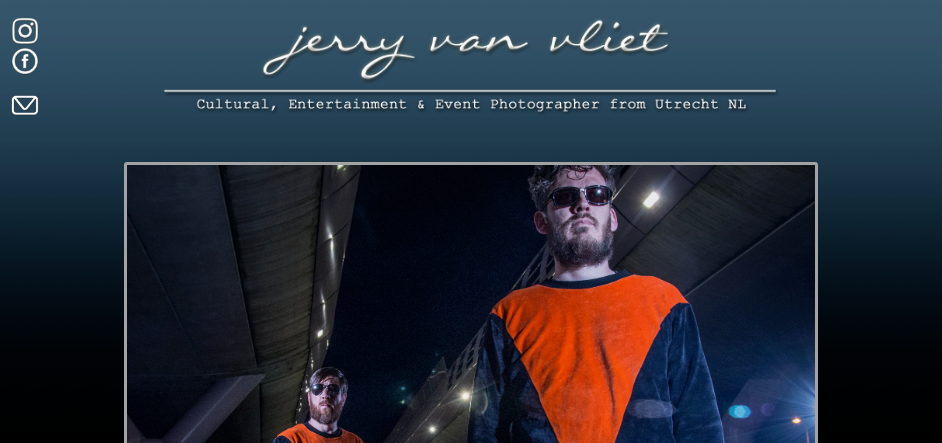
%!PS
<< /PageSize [942 443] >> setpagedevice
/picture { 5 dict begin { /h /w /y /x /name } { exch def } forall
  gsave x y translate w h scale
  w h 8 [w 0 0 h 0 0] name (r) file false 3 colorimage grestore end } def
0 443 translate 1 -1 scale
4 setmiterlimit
1 setgray
0 0 942 443 rectfill
(img1.rgb) 0 0 942 443 picture
(img2.rgb) 12 17 27 28 picture
(img3.rgb) 12 48 27 27 picture
(img4.rgb) 11 95 28 21 picture
(img5.rgb) 163 18 616 97 picture
(img6.rgb) 124 162 694 281 picture
showpage
